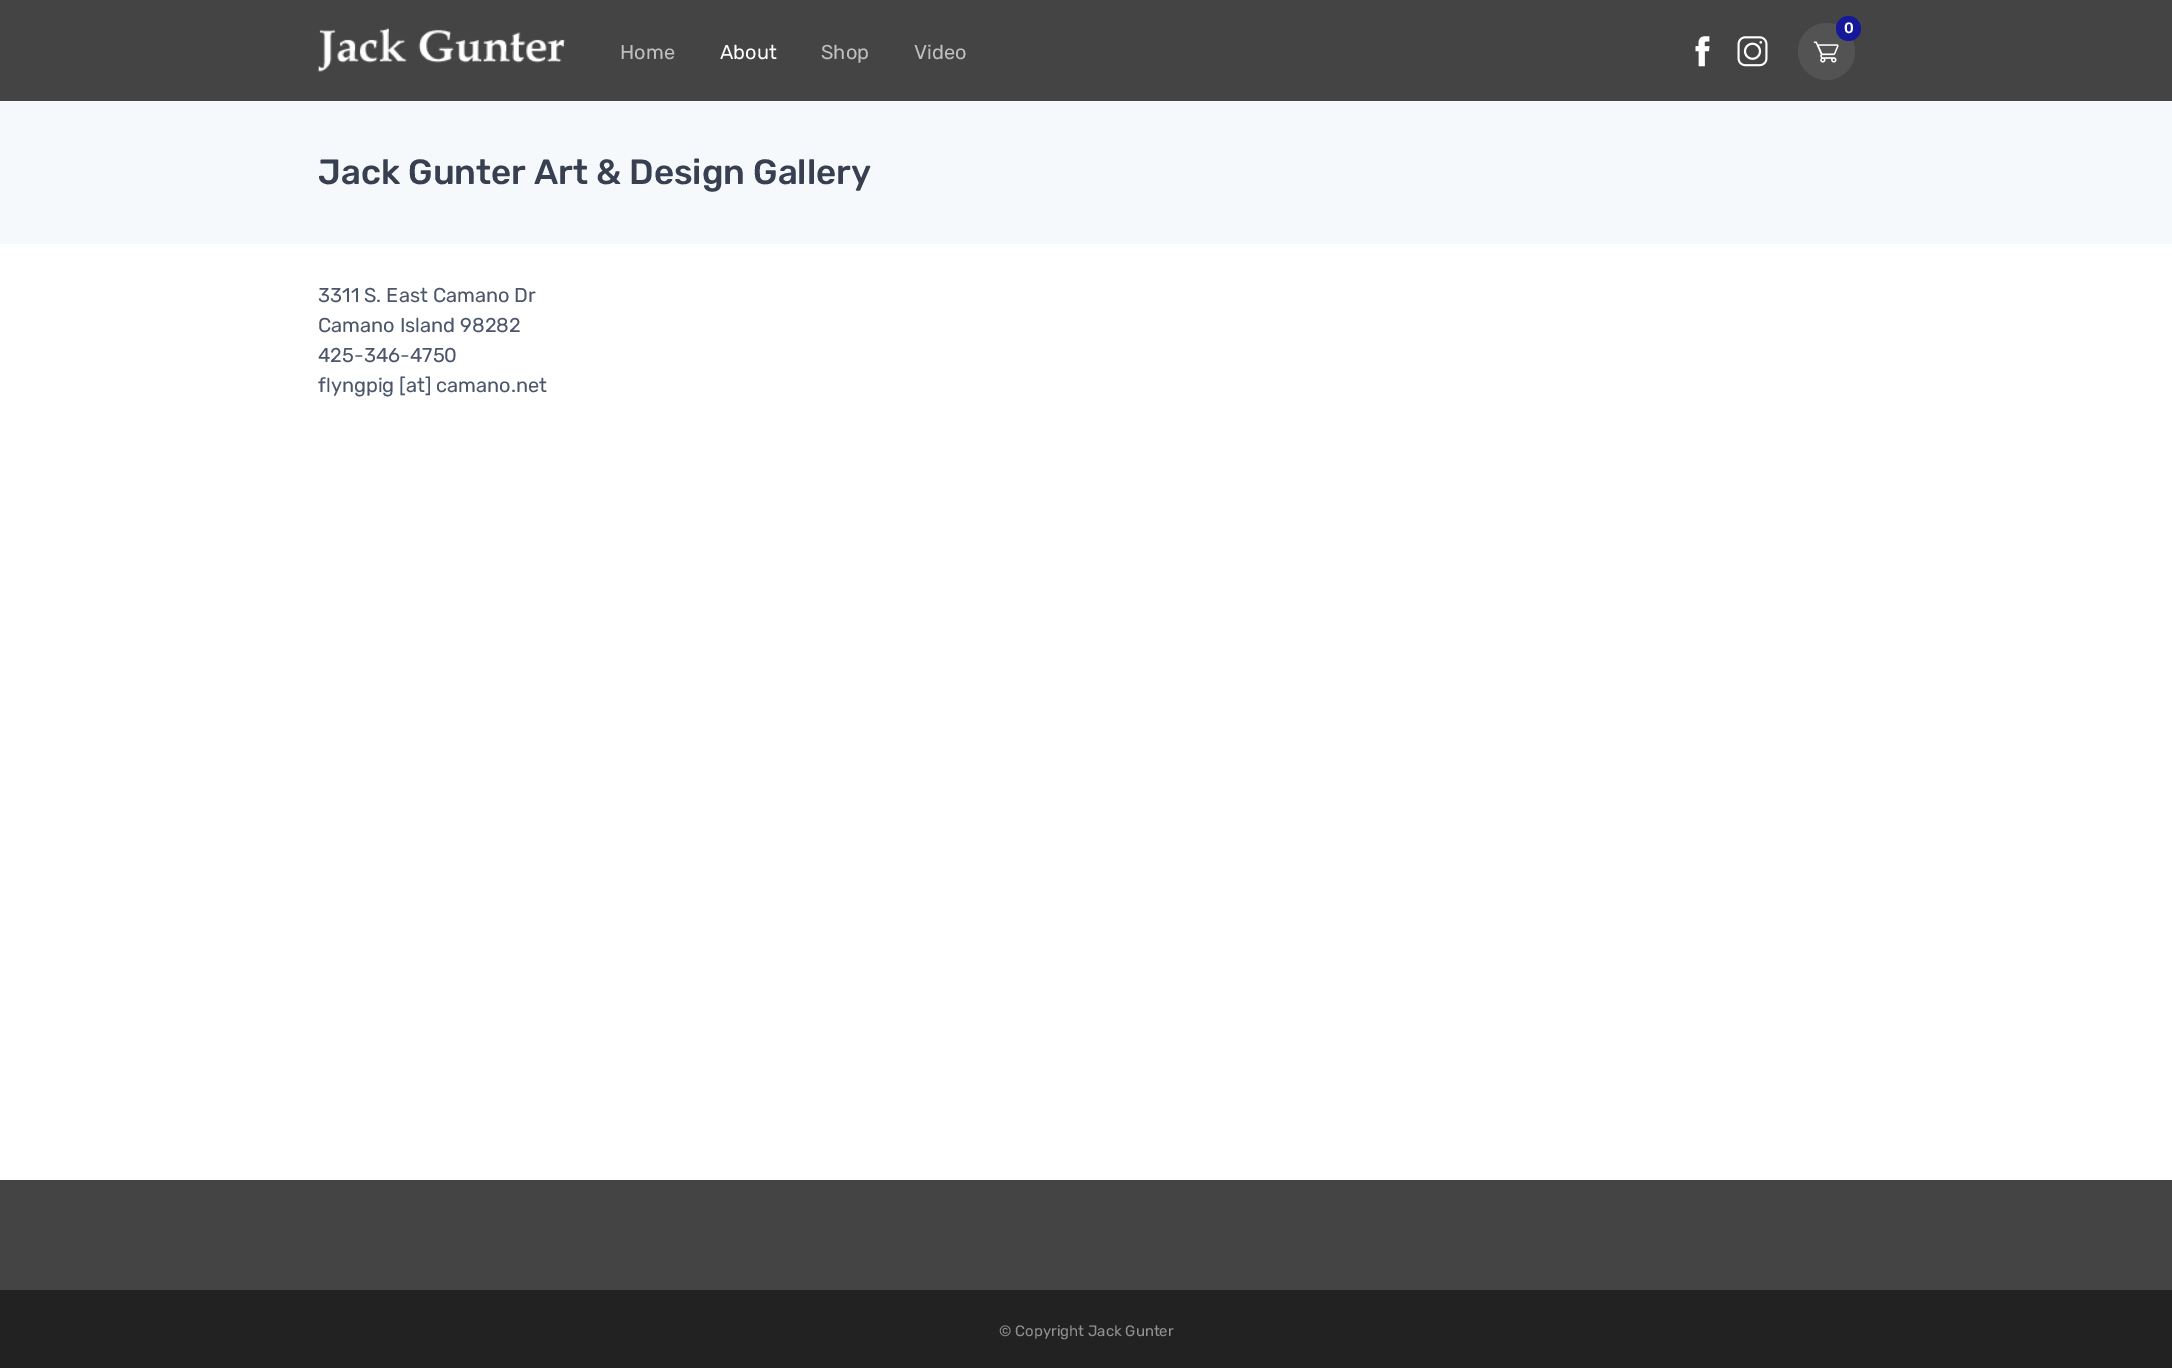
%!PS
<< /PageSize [2172 1368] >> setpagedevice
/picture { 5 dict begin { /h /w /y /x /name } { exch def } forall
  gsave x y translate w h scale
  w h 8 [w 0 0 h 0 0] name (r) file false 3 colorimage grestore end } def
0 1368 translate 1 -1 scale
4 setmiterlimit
1 setgray
0 0 2172 1368 rectfill
0.267 setgray
0 0 2172 101 rectfill
(img1.rgb) 317 28 249 44 picture
/Rubik-Regular [20 0 0 -20 0 0] selectfont
0.745 setgray
620 59 moveto (Home) show
1 setgray
720 59 moveto (About) show
0.745 setgray
821 59 moveto (Shop) show
914 59 moveto (Video) show
0.325 setgray
newpath 1826.5 51.5 28.5 0 360 arc closepath fill
0.082 0.098 0.6 setrgbcolor
newpath 1848.5 28.5 12.5 0 360 arc closepath fill
/Rubik-Medium [15 0 0 -15 0 0] selectfont
1 setgray
1844 33 moveto (0) show
(img2.rgb) 1813 41 26 22 picture
(img3.rgb) 1695 36 15 31 picture
(img4.rgb) 1737 36 31 31 picture
0.965 0.976 0.988 setrgbcolor
0 101 2172 143 rectfill
/Rubik-Medium [35 0 0 -35 0 0] selectfont
0.216 0.247 0.314 setrgbcolor
318 184 moveto (Jack Gunter Art & Design Gallery) show
/Rubik-Regular [20 0 0 -20 0 0] selectfont
0.294 0.337 0.42 setrgbcolor
318 302 moveto (3311 S. East Camano Dr) show
318 332 moveto (Camano Island 98282) show
318 362 moveto (425-346-4750) show
318 392 moveto (flyngpig [at] camano.net) show
0.267 setgray
0 1180 2172 110 rectfill
0.133 setgray
0 1290 2172 78 rectfill
/Rubik-Regular [15 0 0 -15 0 0] selectfont
0.569 setgray
999 1336 moveto (© Copyright Jack Gunter) show
showpage
